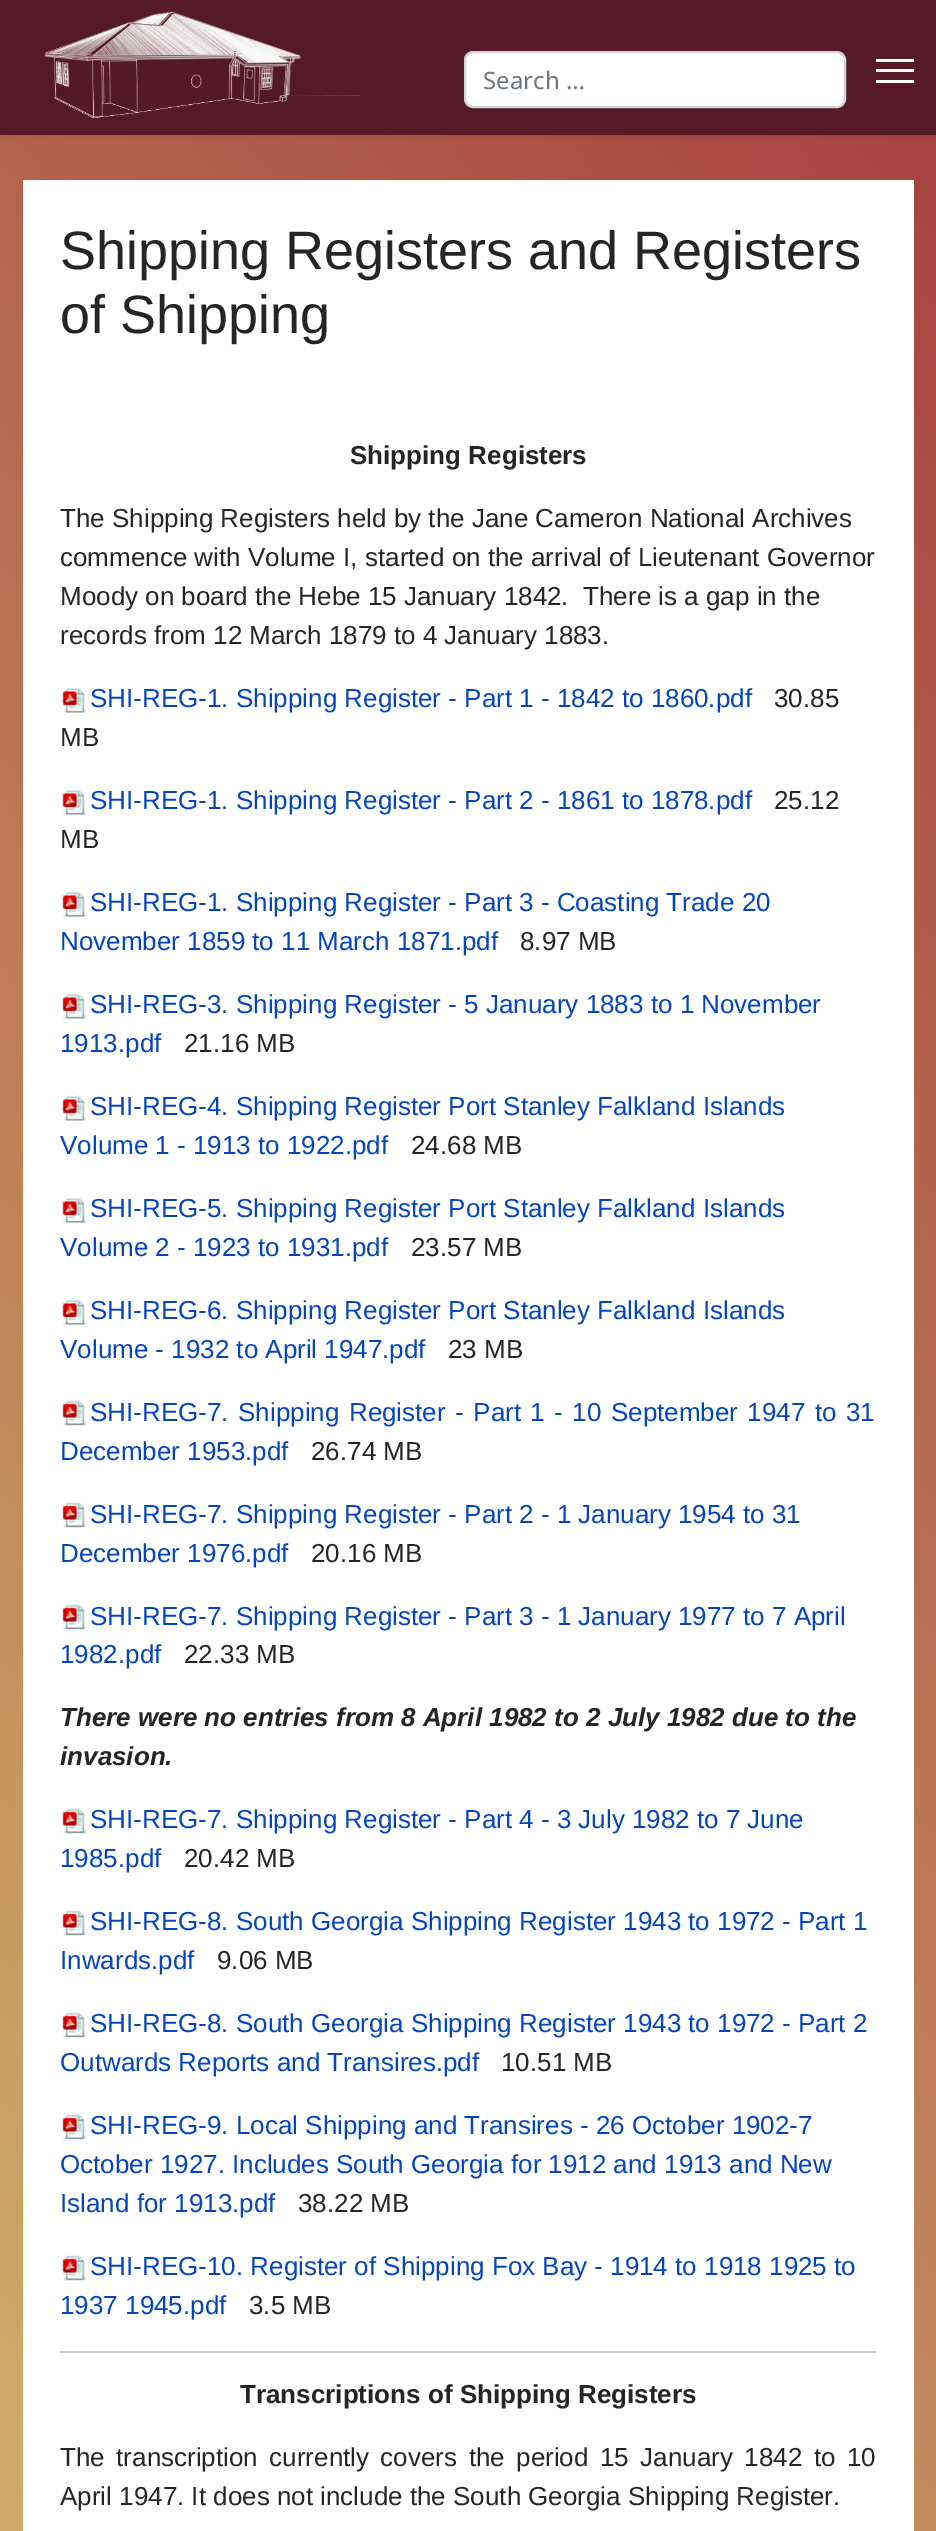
%!PS
<< /PageSize [936 2531] /PageUsesTransparency true >> setpagedevice
/alpha { dup .setfillconstantalpha .setstrokeconstantalpha } def
/roundrect { 5 dict begin { /r /h /w /y /x } { exch def } forall
  x r add y moveto x w add y 2 copy h add r arct x w add y h add x 1 index r arct
  x y h add x y r arct x y 2 copy exch w add exch r arct closepath end } def
/shadow { 12 dict begin { /a /b /q /h /w /y /x } { exch def } forall gsave /was 0 def
  9 -2 -9 { dup b mul 4 div /e exch def 1 sub .425 mul 2.718 exch exp 1 add a .99 .min exch div /now exch def
    1 1 now sub 1 was sub div sub alpha /was now def
    w h .min e 2 mul add 0 gt { x e sub y e sub w e 2 mul add h e 2 mul add
      q e add b .6 mul add w h .min 2 div e add .min 0 .max roundrect fill } if } for grestore end } def
/picture { 5 dict begin { /h /w /y /x /name } { exch def } forall
  gsave x y translate w h scale
  w h 8 [w 0 0 h 0 0] name (r) file false 3 colorimage grestore end } def
0 .pushpdf14devicefilter
0 2531 translate 1 -1 scale
4 setmiterlimit
1 setgray
0 0 936 2531 rectfill
gsave newpath 0 135 moveto 936 135 lineto 936 2531 lineto 0 2531 lineto closepath clip newpath
<< /ShadingType 2 /ColorSpace /DeviceRGB /Coords [-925 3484 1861 1064] /Extend [true true] /Function << /FunctionType 3 /Domain [0 1] /Functions [<< /FunctionType 2 /Domain [0 1] /C0 [0.89 0.882 0.486] /C1 [0.89 0.882 0.486] /N 1 >> << /FunctionType 2 /Domain [0 1] /C0 [0.89 0.882 0.486] /C1 [0.651 0.251 0.251] /N 1 >>] /Bounds [0.05] /Encode [0 1 0 1] >> >> shfill grestore
0 setgray
0 0 936 135 0 3 0.1 shadow
0.333 0.102 0.145 setrgbcolor
0 0 936 135 rectfill
(img1.rgb) 44 11 316 108 picture
1 setgray
465 52 380 55 8 roundrect gsave fill grestore
0.808 0.831 0.855 setrgbcolor
2 setlinewidth
stroke
/NotoSans-Regular [24 0 0 -24 0 0] selectfont
0.424 0.459 0.49 setrgbcolor
483 89 moveto (Search …) show
1 setgray
876 59 38 3 rectfill
876 69 38 3 rectfill
876 80 38 3 rectfill
23 180 891 2351 rectfill
/LiberationSans-Regular [54 0 0 -54 0 0] selectfont
0.145 setgray
60 269 moveto (Shipping Registers and Registers) show
60 333 moveto (of Shipping) show
/LiberationSans-Bold [26 0 0 -26 0 0] selectfont
350 464 moveto (Shipping Registers) show
/LiberationSans-Regular [26 0 0 -26 0 0] selectfont
60 527 moveto (The Shipping Registers held by the Jane Cameron National Archives) show
60 566 moveto (commence with Volume I, started on the arrival of Lieutenant Governor) show
60 605 moveto (Moody on board the Hebe 15 January 1842.  There is a gap in the) show
60 644 moveto (records from 12 March 1879 to 4 January 1883.) show
(img2.rgb) 62 688 25 25 picture
0.012 0.271 0.749 setrgbcolor
90 707 moveto (SHI-REG-1. Shipping Register - Part 1 - 1842 to 1860.pdf) show
0.145 setgray
774 707 moveto (30.85) show
60 746 moveto (MB) show
(img2.rgb) 62 790 25 25 picture
0.012 0.271 0.749 setrgbcolor
90 809 moveto (SHI-REG-1. Shipping Register - Part 2 - 1861 to 1878.pdf) show
0.145 setgray
774 809 moveto (25.12) show
60 848 moveto (MB) show
(img2.rgb) 62 892 25 25 picture
0.012 0.271 0.749 setrgbcolor
90 911 moveto (SHI-REG-1. Shipping Register - Part 3 - Coasting Trade 20) show
60 950 moveto (November 1859 to 11 March 1871.pdf) show
0.145 setgray
520 950 moveto (8.97 MB) show
(img2.rgb) 62 994 25 25 picture
0.012 0.271 0.749 setrgbcolor
90 1013 moveto (SHI-REG-3. Shipping Register - 5 January 1883 to 1 November) show
60 1052 moveto (1913.pdf) show
0.145 setgray
184 1052 moveto (21.16 MB) show
(img2.rgb) 62 1096 25 25 picture
0.012 0.271 0.749 setrgbcolor
90 1115 moveto (SHI-REG-4. Shipping Register Port Stanley Falkland Islands) show
60 1154 moveto (Volume 1 - 1913 to 1922.pdf) show
0.145 setgray
411 1154 moveto (24.68 MB) show
(img2.rgb) 62 1198 25 25 picture
0.012 0.271 0.749 setrgbcolor
90 1217 moveto (SHI-REG-5. Shipping Register Port Stanley Falkland Islands) show
60 1256 moveto (Volume 2 - 1923 to 1931.pdf) show
0.145 setgray
411 1256 moveto (23.57 MB) show
(img2.rgb) 62 1300 25 25 picture
0.012 0.271 0.749 setrgbcolor
90 1319 moveto (SHI-REG-6. Shipping Register Port Stanley Falkland Islands) show
60 1358 moveto (Volume - 1932 to April 1947.pdf) show
0.145 setgray
448 1358 moveto (23 MB) show
(img3.rgb) 62 1400 25 26 picture
0.012 0.271 0.749 setrgbcolor
90 1421 moveto 2.25 0 32 (SHI-REG-7. Shipping Register - Part 1 - 10 September 1947 to 31) widthshow
60 1460 moveto (December 1953.pdf) show
0.145 setgray
311 1460 moveto (26.74 MB) show
(img3.rgb) 62 1502 25 26 picture
0.012 0.271 0.749 setrgbcolor
90 1523 moveto (SHI-REG-7. Shipping Register - Part 2 - 1 January 1954 to 31) show
60 1562 moveto (December 1976.pdf) show
0.145 setgray
311 1562 moveto (20.16 MB) show
(img3.rgb) 62 1604 25 26 picture
0.012 0.271 0.749 setrgbcolor
90 1625 moveto (SHI-REG-7. Shipping Register - Part 3 - 1 January 1977 to 7 April) show
60 1663 moveto (1982.pdf) show
0.145 setgray
184 1663 moveto (22.33 MB) show
/LiberationSans-BoldItalic [26 0 0 -26 0 0] selectfont
60 1726 moveto (There were no entries from 8 April 1982 to 2 July 1982 due to the) show
60 1765 moveto (invasion.) show
(img3.rgb) 62 1808 25 26 picture
/LiberationSans-Regular [26 0 0 -26 0 0] selectfont
0.012 0.271 0.749 setrgbcolor
90 1828 moveto (SHI-REG-7. Shipping Register - Part 4 - 3 July 1982 to 7 June) show
60 1867 moveto (1985.pdf) show
0.145 setgray
184 1867 moveto (20.42 MB) show
(img3.rgb) 62 1910 25 26 picture
0.012 0.271 0.749 setrgbcolor
90 1930 moveto (SHI-REG-8. South Georgia Shipping Register 1943 to 1972 - Part 1) show
60 1969 moveto (Inwards.pdf) show
0.145 setgray
217 1969 moveto (9.06 MB) show
(img3.rgb) 62 2012 25 26 picture
0.012 0.271 0.749 setrgbcolor
90 2032 moveto (SHI-REG-8. South Georgia Shipping Register 1943 to 1972 - Part 2) show
60 2071 moveto (Outwards Reports and Transires.pdf) show
0.145 setgray
501 2071 moveto (10.51 MB) show
(img3.rgb) 62 2114 25 26 picture
0.012 0.271 0.749 setrgbcolor
90 2134 moveto (SHI-REG-9. Local Shipping and Transires - 26 October 1902-7) show
60 2173 moveto (October 1927. Includes South Georgia for 1912 and 1913 and New) show
60 2212 moveto (Island for 1913.pdf) show
0.145 setgray
298 2212 moveto (38.22 MB) show
(img3.rgb) 62 2255 25 26 picture
0.012 0.271 0.749 setrgbcolor
90 2275 moveto (SHI-REG-10. Register of Shipping Fox Bay - 1914 to 1918 1925 to) show
60 2314 moveto (1937 1945.pdf) show
0.145 setgray
249 2314 moveto (3.5 MB) show
0.788 setgray
60 2351 816 2 rectfill
/LiberationSans-Bold [26 0 0 -26 0 0] selectfont
0.145 setgray
240 2403 moveto (Transcriptions of Shipping Registers) show
/LiberationSans-Regular [26 0 0 -26 0 0] selectfont
60 2466 moveto 4.25 0 32 (The transcription currently covers the period 15 January 1842 to 10) widthshow
60 2505 moveto (April 1947. It does not include the South Georgia Shipping Register.) show
.poppdf14devicefilter showpage
